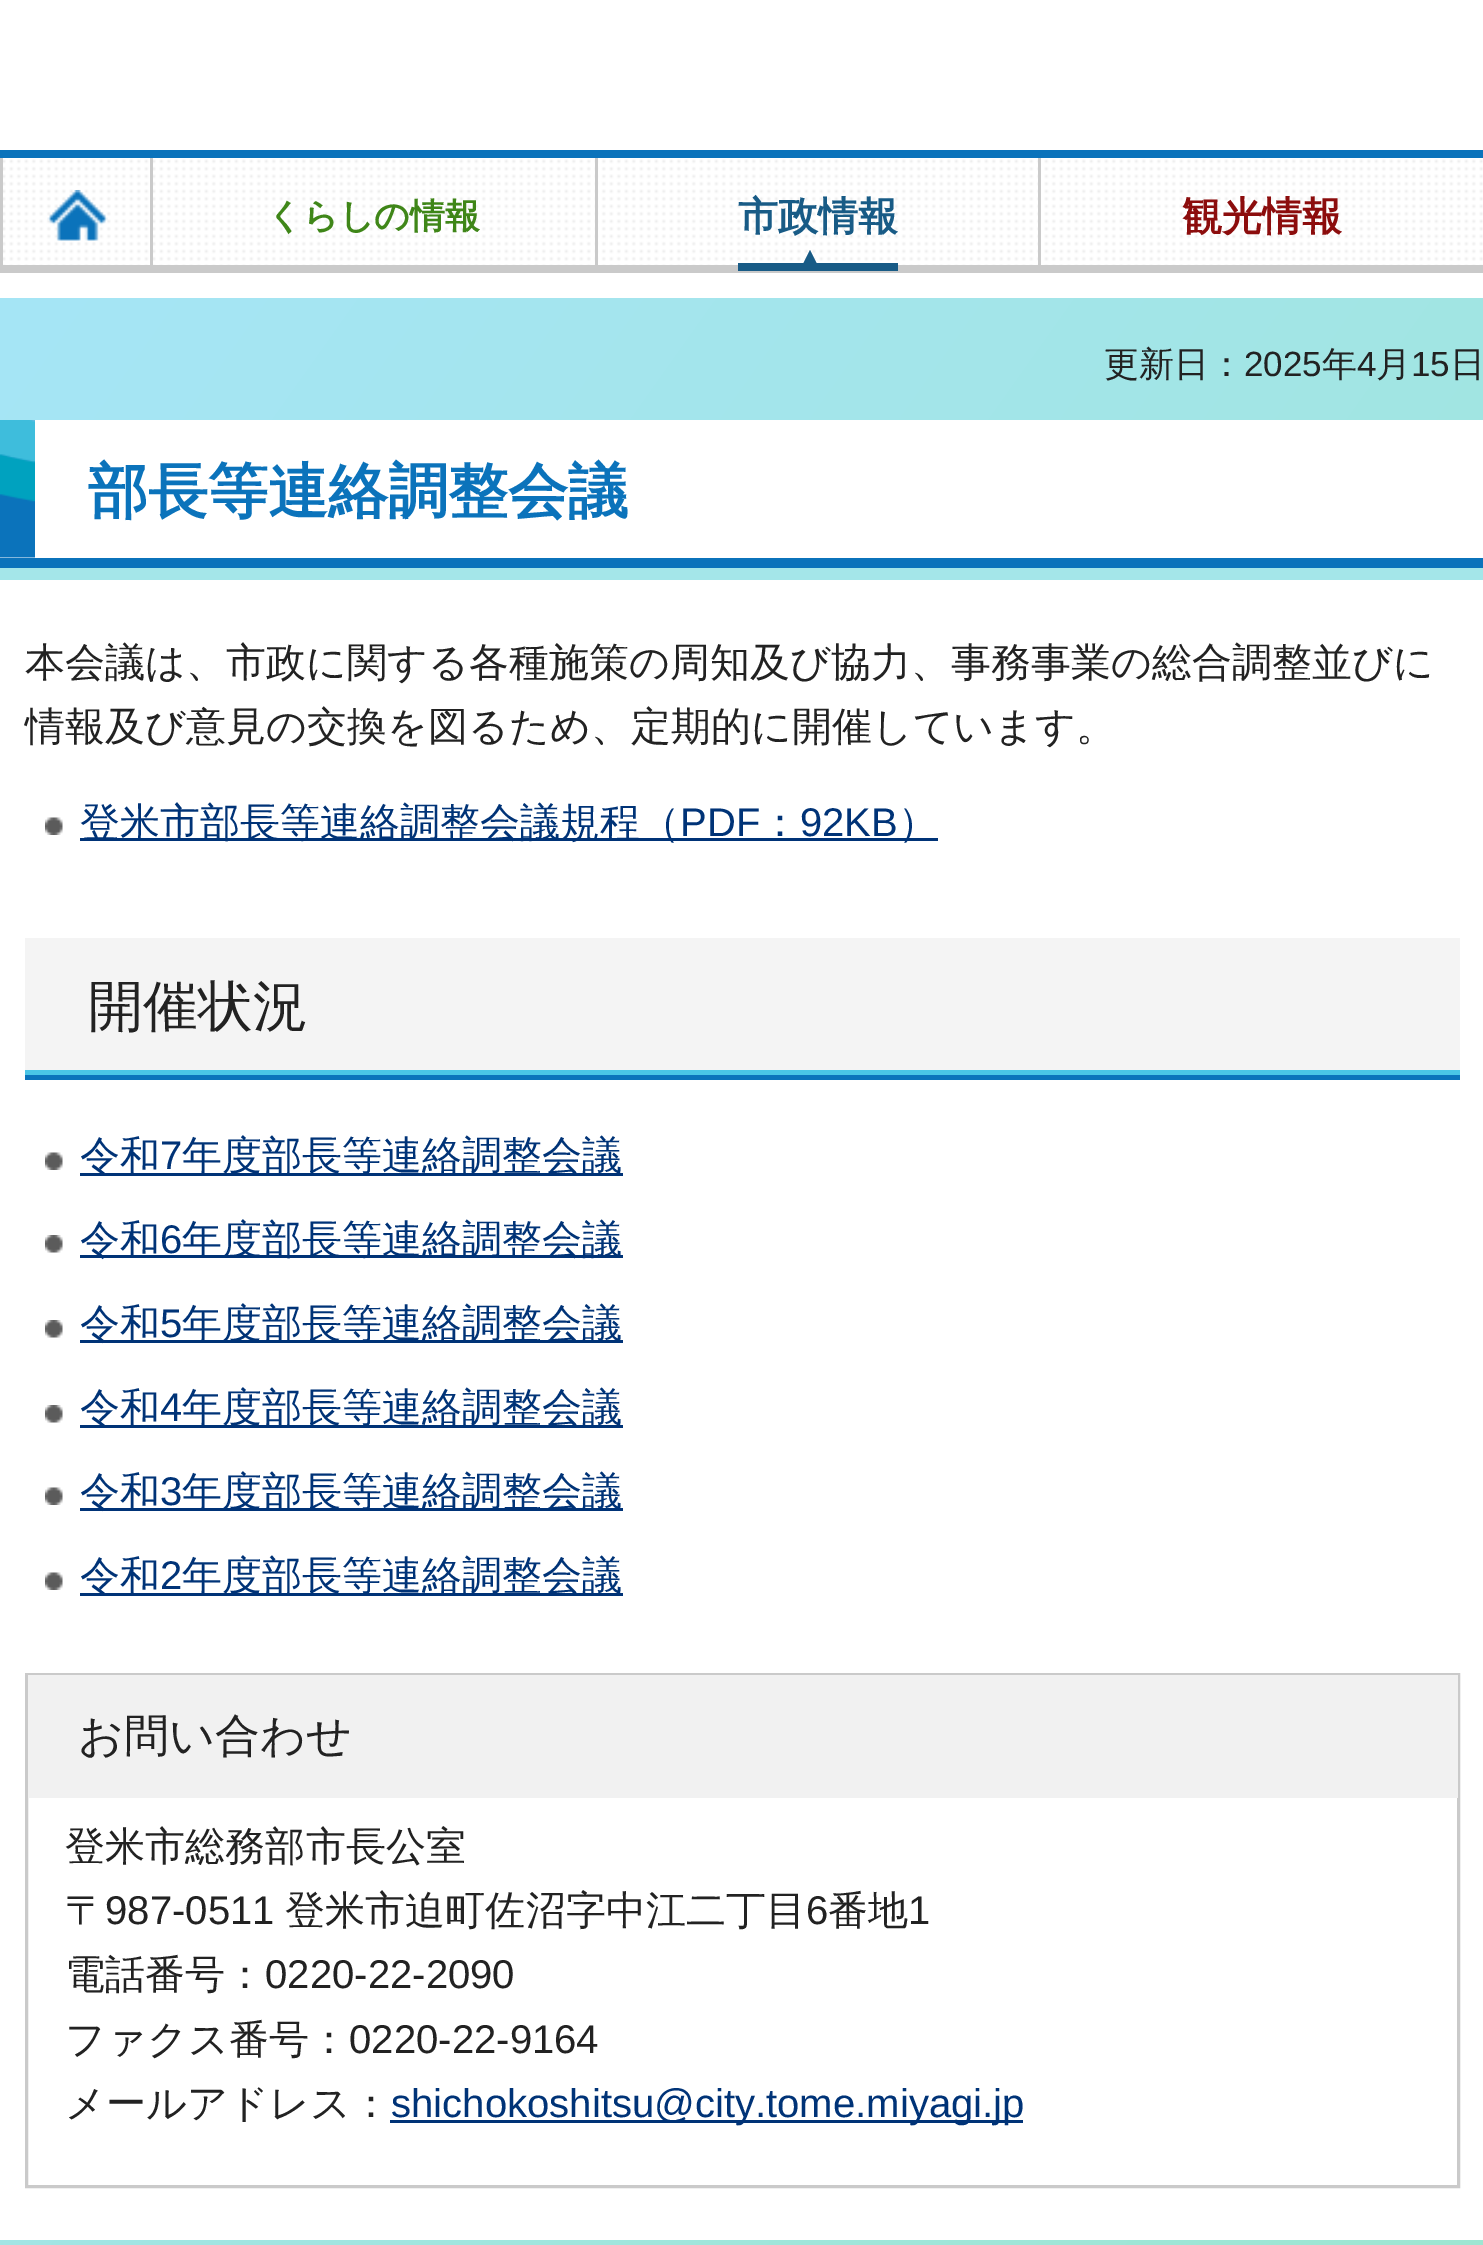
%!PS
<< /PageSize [1483 2245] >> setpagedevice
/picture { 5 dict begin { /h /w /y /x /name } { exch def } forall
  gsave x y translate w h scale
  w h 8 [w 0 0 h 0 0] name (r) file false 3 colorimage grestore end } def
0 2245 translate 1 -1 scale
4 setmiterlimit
1 setgray
0 0 1483 2245 rectfill
(img1.rgb) 3 158 1480 107 picture
0.043 0.451 0.733 setrgbcolor
0 150 1483 8 rectfill
0.792 setgray
0 265 1483 8 rectfill
0 158 3 107 rectfill
(img2.rgb) 47 190 61 51 picture
150 158 3 115 rectfill
/WenQuanYiZenHei-Bold [35 0 0 -35 0 0] selectfont
0.247 0.525 0.094 setrgbcolor
267 228 moveto (くらしの情報) show
0.792 setgray
595 158 3 112 rectfill
0.094 0.357 0.525 setrgbcolor
738 263 160 8 rectfill
/WenQuanYiZenHei-Bold [40 0 0 -40 0 0] selectfont
738 230 moveto (市政情報) show
newpath 817.5 265 moveto 802.5 265 lineto 810 250 lineto closepath fill
0.792 setgray
1038 158 3 115 rectfill
0.549 0.051 0.051 setrgbcolor
1182 230 moveto (観光情報) show
gsave newpath 0 298 moveto 1483 298 lineto 1483 2245 lineto 0 2245 lineto closepath clip newpath
<< /ShadingType 2 /ColorSpace /DeviceRGB /Coords [-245 643 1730 2045] /Extend [true true] /Function << /FunctionType 2 /Domain [0 1] /C0 [0.651 0.898 0.965] /C1 [0.62 0.902 0.82] /N 1 >> >> shfill grestore
/WenQuanYiZenHei-Medium [35 0 0 -35 0 0] selectfont
0.133 setgray
1104 376 moveto (更新日：) show
/LiberationSans-Regular [35 0 0 -35 0 0] selectfont
1244 376 moveto (2025) show
/WenQuanYiZenHei-Medium [35 0 0 -35 0 0] selectfont
1322 376 moveto (年) show
/LiberationSans-Regular [35 0 0 -35 0 0] selectfont
1357 376 moveto (4) show
/WenQuanYiZenHei-Medium [35 0 0 -35 0 0] selectfont
1376 376 moveto (月) show
/LiberationSans-Regular [35 0 0 -35 0 0] selectfont
1411 376 moveto (15) show
/WenQuanYiZenHei-Medium [35 0 0 -35 0 0] selectfont
1450 376 moveto (日) show
1 setgray
0 420 1483 1820 rectfill
(img3.rgb) 0 420 35 138 picture
0.043 0.451 0.733 setrgbcolor
0 558 1483 10 rectfill
/WenQuanYiZenHei-Bold [60 0 0 -60 0 0] selectfont
88 512 moveto (部長等連絡調整会議) show
0.643 0.902 0.914 setrgbcolor
0 568 1483 12 rectfill
/WenQuanYiZenHei-Medium [40 0 0 -40 0 0] selectfont
0.133 setgray
25 676 moveto (本会議は、市政に関する各種施策の周知及び協力、事務事業の総合調整並びに) show
25 740 moveto (情報及び意見の交換を図るため、定期的に開催しています。) show
(img4.rgb) 45 817 18 18 picture
0 0.2 0.467 setrgbcolor
80 838 858 3 rectfill
80 836 moveto (登米市部長等連絡調整会議規程（) show
/LiberationSans-Regular [40 0 0 -40 0 0] selectfont
680 836 moveto (PDF) show
/WenQuanYiZenHei-Medium [40 0 0 -40 0 0] selectfont
760 836 moveto (：) show
/LiberationSans-Regular [40 0 0 -40 0 0] selectfont
800 836 moveto (92KB) show
/WenQuanYiZenHei-Medium [40 0 0 -40 0 0] selectfont
898 836 moveto (）) show
0.957 setgray
25 938 1435 132 rectfill
0.043 0.451 0.733 setrgbcolor
25 1075 1435 5 rectfill
/WenQuanYiZenHei-Medium [55 0 0 -55 0 0] selectfont
0.133 setgray
88 1025 moveto (開催状況) show
0.29 0.773 0.902 setrgbcolor
25 1070 1435 5 rectfill
(img4.rgb) 45 1152 18 18 picture
0 0.2 0.467 setrgbcolor
80 1173 543 3 rectfill
/WenQuanYiZenHei-Medium [40 0 0 -40 0 0] selectfont
80 1169 moveto (令和) show
/LiberationSans-Regular [40 0 0 -40 0 0] selectfont
160 1169 moveto (7) show
/WenQuanYiZenHei-Medium [40 0 0 -40 0 0] selectfont
182 1169 moveto (年度部長等連絡調整会議) show
(img5.rgb) 45 1235 18 18 picture
80 1255 543 3 rectfill
80 1253 moveto (令和) show
/LiberationSans-Regular [40 0 0 -40 0 0] selectfont
160 1253 moveto (6) show
/WenQuanYiZenHei-Medium [40 0 0 -40 0 0] selectfont
182 1253 moveto (年度部長等連絡調整会議) show
(img5.rgb) 45 1320 18 18 picture
80 1340 543 3 rectfill
80 1337 moveto (令和) show
/LiberationSans-Regular [40 0 0 -40 0 0] selectfont
160 1337 moveto (5) show
/WenQuanYiZenHei-Medium [40 0 0 -40 0 0] selectfont
182 1337 moveto (年度部長等連絡調整会議) show
(img5.rgb) 45 1405 18 18 picture
80 1425 543 3 rectfill
80 1421 moveto (令和) show
/LiberationSans-Regular [40 0 0 -40 0 0] selectfont
160 1421 moveto (4) show
/WenQuanYiZenHei-Medium [40 0 0 -40 0 0] selectfont
182 1421 moveto (年度部長等連絡調整会議) show
(img4.rgb) 45 1487 18 18 picture
80 1508 543 3 rectfill
80 1505 moveto (令和) show
/LiberationSans-Regular [40 0 0 -40 0 0] selectfont
160 1505 moveto (3) show
/WenQuanYiZenHei-Medium [40 0 0 -40 0 0] selectfont
182 1505 moveto (年度部長等連絡調整会議) show
(img4.rgb) 45 1572 18 18 picture
80 1593 543 3 rectfill
80 1589 moveto (令和) show
/LiberationSans-Regular [40 0 0 -40 0 0] selectfont
160 1589 moveto (2) show
/WenQuanYiZenHei-Medium [40 0 0 -40 0 0] selectfont
182 1589 moveto (年度部長等連絡調整会議) show
0.792 setgray
3 setlinewidth
26.5 1674.5 1432 512 rectstroke
0.945 setgray
28 1675 1430 123 rectfill
/WenQuanYiZenHei-Medium [45 0 0 -45 0 0] selectfont
0.133 setgray
78 1751 moveto (お問い合わせ) show
/WenQuanYiZenHei-Medium [40.1 0 0 -40.1 0 0] selectfont
65 1860 moveto (登米市総務部市長公室) show
65 1924 moveto (〒) show
/LiberationSans-Regular [40.1 0 0 -40.1 0 0] selectfont
105 1924 moveto (987-0511) show
/WenQuanYiZenHei-Medium [40.1 0 0 -40.1 0 0] selectfont
285 1924 moveto (登米市迫町佐沼字中江二丁目) show
/LiberationSans-Regular [40.1 0 0 -40.1 0 0] selectfont
806 1924 moveto (6) show
/WenQuanYiZenHei-Medium [40.1 0 0 -40.1 0 0] selectfont
828 1924 moveto (番地) show
/LiberationSans-Regular [40.1 0 0 -40.1 0 0] selectfont
908 1924 moveto (1) show
/WenQuanYiZenHei-Medium [40.1 0 0 -40.1 0 0] selectfont
65 1988 moveto (電話番号：) show
/LiberationSans-Regular [40.1 0 0 -40.1 0 0] selectfont
265 1988 moveto (0220-22-2090) show
/WenQuanYiZenHei-Medium [40.1 0 0 -40.1 0 0] selectfont
65 2053 moveto (ファクス番号：) show
/LiberationSans-Regular [40.1 0 0 -40.1 0 0] selectfont
349 2053 moveto (0220-22-9164) show
/WenQuanYiZenHei-Medium [40.1 0 0 -40.1 0 0] selectfont
65 2117 moveto (メールアドレス：) show
0 0.2 0.467 setrgbcolor
390 2120 633 3 rectfill
/LiberationSans-Regular [40.1 0 0 -40.1 0 0] selectfont
391 2117 moveto (shichokoshitsu@city.tome.miyagi.jp) show
showpage
